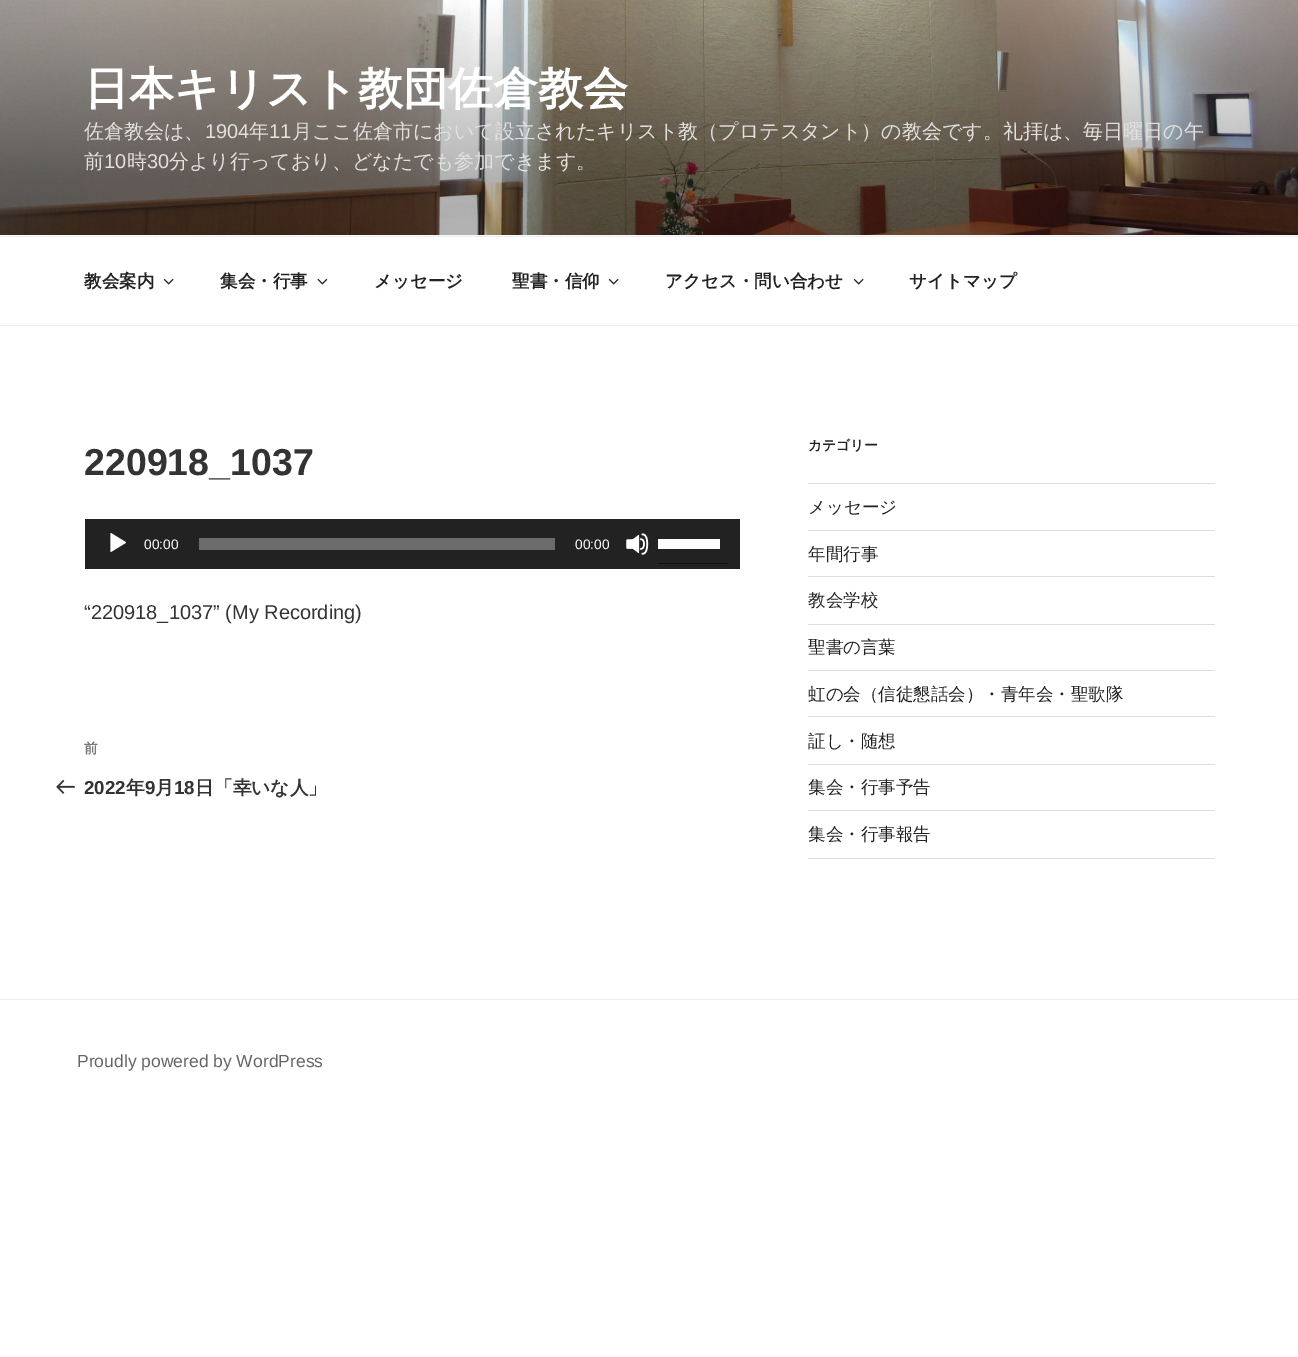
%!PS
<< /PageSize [1298 1357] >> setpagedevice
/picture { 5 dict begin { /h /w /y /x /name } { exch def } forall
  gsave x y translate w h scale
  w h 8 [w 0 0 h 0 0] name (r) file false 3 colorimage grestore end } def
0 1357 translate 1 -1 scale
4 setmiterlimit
1 setgray
0 0 1298 1357 rectfill
0.98 setgray
0 235 1298 1 rectfill
(img1.rgb) 0 0 1298 235 picture
/WenQuanYiZenHei-Bold [45 0 0 -45 0 0] selectfont
1 setgray
84 104 moveto (日本キリスト教団佐倉教会) show
/WenQuanYiZenHei-Medium [20 0 0 -20 0 0] selectfont
0.89 0.882 0.878 setrgbcolor
84 138 moveto (佐倉教会は、) show
/LiberationSans-Regular [20 0 0 -20 0 0] selectfont
205 138 moveto (1904) show
/WenQuanYiZenHei-Medium [20 0 0 -20 0 0] selectfont
249 138 moveto (年) show
/LiberationSans-Regular [20 0 0 -20 0 0] selectfont
269 138 moveto (11) show
/WenQuanYiZenHei-Medium [20 0 0 -20 0 0] selectfont
292 138 moveto (月ここ佐倉市において設立されたキリスト教（プロテスタント）の教会です。礼拝は、毎日曜日の午) show
84 168 moveto (前) show
/LiberationSans-Regular [20 0 0 -20 0 0] selectfont
104 168 moveto (10) show
/WenQuanYiZenHei-Medium [20 0 0 -20 0 0] selectfont
127 168 moveto (時) show
/LiberationSans-Regular [20 0 0 -20 0 0] selectfont
147 168 moveto (30) show
/WenQuanYiZenHei-Medium [20 0 0 -20 0 0] selectfont
169 168 moveto (分より行っており、どなたでも参加できます。) show
0.933 setgray
0 236 1298 1 rectfill
0 325 1298 1 rectfill
/WenQuanYiZenHei-Bold [17.5 0 0 -17.5 0 0] selectfont
0.133 setgray
84 287 moveto (教会案内) show
(img2.rgb) 163 278 11 7 picture
220 287 moveto (集会・行事) show
(img3.rgb) 317 278 11 7 picture
374 287 moveto (メッセージ) show
512 287 moveto (聖書・信仰) show
(img2.rgb) 608 278 11 7 picture
665 287 moveto (アクセス・問い合わせ) show
(img2.rgb) 853 278 11 7 picture
909 287 moveto (サイトマップ) show
/LiberationSans-Bold [37.5 0 0 -37.5 0 0] selectfont
0.2 setgray
84 475 moveto (220918_1037) show
0.133 setgray
85 519 655 50 rectfill
(img4.rgb) 110 533 16 19 picture
/LiberationSans-Regular [13.75 0 0 -13.75 0 0] selectfont
1 setgray
144 549 moveto (00:00) show
0.42 setgray
199 538 356 12 rectfill
1 setgray
575 549 moveto (00:00) show
(img5.rgb) 626 533 23 22 picture
0.059 setgray
658 563 70 1 rectfill
1 setgray
658 539 62 10 rectfill
/LiberationSans-Regular [20 0 0 -20 0 0] selectfont
0.2 setgray
84 619 moveto (“220918_1037” \(My Recording\)) show
/WenQuanYiZenHei-Bold [13.75 0 0 -13.75 0 0] selectfont
0.463 setgray
84 753 moveto (前) show
(img6.rgb) 56 780 19 14 picture
/LiberationSans-Bold [18.75 0 0 -18.75 0 0] selectfont
0.2 setgray
84 794 moveto (2022) show
/WenQuanYiZenHei-Bold [18.75 0 0 -18.75 0 0] selectfont
126 794 moveto (年) show
/LiberationSans-Bold [18.75 0 0 -18.75 0 0] selectfont
145 794 moveto (9) show
/WenQuanYiZenHei-Bold [18.75 0 0 -18.75 0 0] selectfont
155 794 moveto (月) show
/LiberationSans-Bold [18.75 0 0 -18.75 0 0] selectfont
174 794 moveto (18) show
/WenQuanYiZenHei-Bold [18.75 0 0 -18.75 0 0] selectfont
195 794 moveto (日「幸いな人」) show
/WenQuanYiZenHei-Bold [13.75 0 0 -13.75 0 0] selectfont
0.133 setgray
808 450 moveto (カテゴリー) show
0.867 setgray
808 483 407 1 rectfill
808 530 407 1 rectfill
/WenQuanYiZenHei-Medium [17.5 0 0 -17.5 0 0] selectfont
0.133 setgray
808 513 moveto (メッセージ) show
0.867 setgray
808 576 407 1 rectfill
0.133 setgray
808 560 moveto (年間行事) show
0.867 setgray
808 624 407 1 rectfill
0.133 setgray
808 606 moveto (教会学校) show
0.867 setgray
808 670 407 1 rectfill
0.133 setgray
808 653 moveto (聖書の言葉) show
0.867 setgray
808 716 407 1 rectfill
0.133 setgray
808 700 moveto (虹の会（信徒懇話会）・青年会・聖歌隊) show
0.867 setgray
808 764 407 1 rectfill
0.133 setgray
808 747 moveto (証し・随想) show
0.867 setgray
808 810 407 1 rectfill
0.133 setgray
808 793 moveto (集会・行事予告) show
0.867 setgray
808 858 407 1 rectfill
0.133 setgray
808 840 moveto (集会・行事報告) show
0.933 setgray
0 999 1298 1 rectfill
/LiberationSans-Regular [17.5 0 0 -17.5 0 0] selectfont
0.4 setgray
77 1067 moveto (Proudly powered by WordPress) show
showpage
